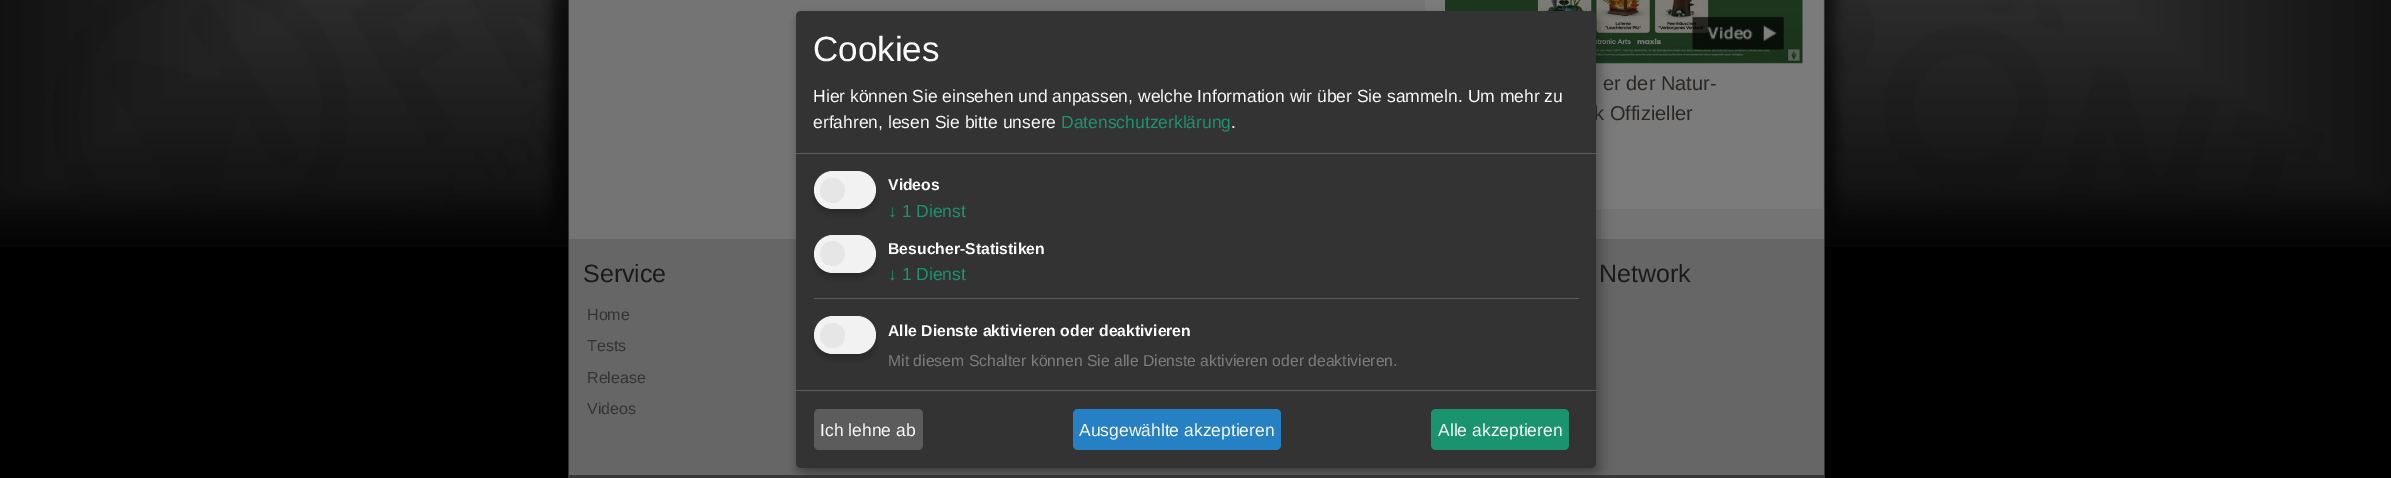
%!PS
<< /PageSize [2391 478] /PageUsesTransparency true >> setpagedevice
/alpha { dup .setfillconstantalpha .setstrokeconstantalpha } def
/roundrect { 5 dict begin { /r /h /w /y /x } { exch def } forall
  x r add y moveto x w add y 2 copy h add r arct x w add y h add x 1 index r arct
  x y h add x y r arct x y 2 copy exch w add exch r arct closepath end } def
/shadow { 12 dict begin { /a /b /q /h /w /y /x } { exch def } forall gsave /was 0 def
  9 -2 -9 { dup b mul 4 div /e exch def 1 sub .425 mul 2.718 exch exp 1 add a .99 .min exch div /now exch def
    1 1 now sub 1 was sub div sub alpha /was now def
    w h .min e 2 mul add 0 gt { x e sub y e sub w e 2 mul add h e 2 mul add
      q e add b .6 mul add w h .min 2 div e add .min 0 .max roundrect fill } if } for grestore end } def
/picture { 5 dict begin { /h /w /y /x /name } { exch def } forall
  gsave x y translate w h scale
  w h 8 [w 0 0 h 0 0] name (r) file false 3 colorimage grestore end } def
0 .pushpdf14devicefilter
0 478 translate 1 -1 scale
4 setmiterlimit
0 setgray
0 0 2391 478 rectfill
(img1.rgb) 0 0 2391 247 picture
0.455 setgray
569 0 1255 239 rectfill
0.482 setgray
1425 0 398 209 rectfill
(img2.rgb) 1445 0 358 64 picture
0.4 setgray
569 239 1255 236 rectfill
0.2 setgray
568 0 1 478 rectfill
0.22 setgray
568 475 1256 3 rectfill
0 setgray
803 18 800 456 5 6 0.19 shadow
796 16 800 457 5 4 0.2 shadow
/LiberationSans-Regular [20 0 0 -20 0 0] selectfont
0.161 0.153 0.145 setrgbcolor
1594 120 moveto (k Offizieller) show
0.2 setgray
796 11 800 457 5 roundrect fill
0.361 setgray
796 153 800 1 rectfill
/LiberationSans-Regular [35 0 0 -35 0 0] selectfont
0.98 setgray
813 61 moveto (Cookies) show
/LiberationSans-Regular [17.5 0 0 -17.5 0 0] selectfont
813 102 moveto (Hier können Sie einsehen und anpassen, welche Information wir über Sie sammeln. Um mehr zu) show
813 128 moveto (erfahren, lesen Sie bitte unsere) show
0.102 0.576 0.435 setrgbcolor
1061 128 moveto (Datenschutzerklärung) show
0.98 setgray
1231 128 moveto (.) show
0 setgray
814 176 62 38 19 4 0.2 shadow
0.949 setgray
814 171 62 38 19 roundrect fill
0.902 setgray
newpath 832.5 190.5 12.5 0 360 arc closepath fill
/LiberationSans-Bold [15.75 0 0 -15.75 0 0] selectfont
0.98 setgray
888 190 moveto (Videos) show
/LiberationSans-Regular [17.5 0 0 -17.5 0 0] selectfont
0.102 0.576 0.435 setrgbcolor
888 217 moveto (↓ 1 Dienst) show
0 setgray
814 240 62 38 19 4 0.2 shadow
0.949 setgray
814 235 62 38 19 roundrect fill
0.902 setgray
newpath 832.5 253.5 12.5 0 360 arc closepath fill
/LiberationSans-Bold [15.75 0 0 -15.75 0 0] selectfont
0.98 setgray
888 254 moveto (Besucher-Statistiken) show
/LiberationSans-Regular [17.5 0 0 -17.5 0 0] selectfont
0.102 0.576 0.435 setrgbcolor
888 280 moveto (↓ 1 Dienst) show
0.361 setgray
814 298 765 1 rectfill
0 setgray
814 321 62 38 19 4 0.2 shadow
0.949 setgray
814 316 62 38 19 roundrect fill
0.902 setgray
newpath 832.5 335.5 12.5 0 360 arc closepath fill
/LiberationSans-Bold [15.75 0 0 -15.75 0 0] selectfont
0.98 setgray
888 336 moveto (Alle Dienste aktivieren oder deaktivieren) show
/LiberationSans-Regular [15.75 0 0 -15.75 0 0] selectfont
0.486 setgray
888 366 moveto (Mit diesem Schalter können Sie alle Dienste aktivieren oder deaktivieren.) show
0.361 setgray
796 390 800 1 rectfill
814 409 109 41 5 roundrect fill
/LiberationSans-Regular [17.5 0 0 -17.5 0 0] selectfont
0.98 setgray
820 436 moveto (Ich lehne ab) show
0.145 0.506 0.769 setrgbcolor
1073 409 208 41 5 roundrect fill
0.98 setgray
1079 436 moveto (Ausgewählte akzeptieren) show
0.102 0.576 0.435 setrgbcolor
1431 409 138 41 5 roundrect fill
0.98 setgray
1438 436 moveto (Alle akzeptieren) show
0.2 setgray
1824 0 1 478 rectfill
(img3.rgb) 1692 16 92 34 picture
/LiberationSans-Regular [20 0 0 -20 0 0] selectfont
0.161 0.153 0.145 setrgbcolor
1603 90 moveto (er der Natur-) show
/LiberationSans-Regular [25 0 0 -25 0 0] selectfont
0.102 setgray
583 282 moveto (Service) show
/LiberationSans-Regular [16 0 0 -16 0 0] selectfont
0.2 setgray
587 320 moveto (Home) show
587 351 moveto (Tests) show
587 383 moveto (Release) show
587 414 moveto (Videos) show
/LiberationSans-Regular [25 0 0 -25 0 0] selectfont
0.102 setgray
1599 282 moveto (Network) show
.poppdf14devicefilter showpage
